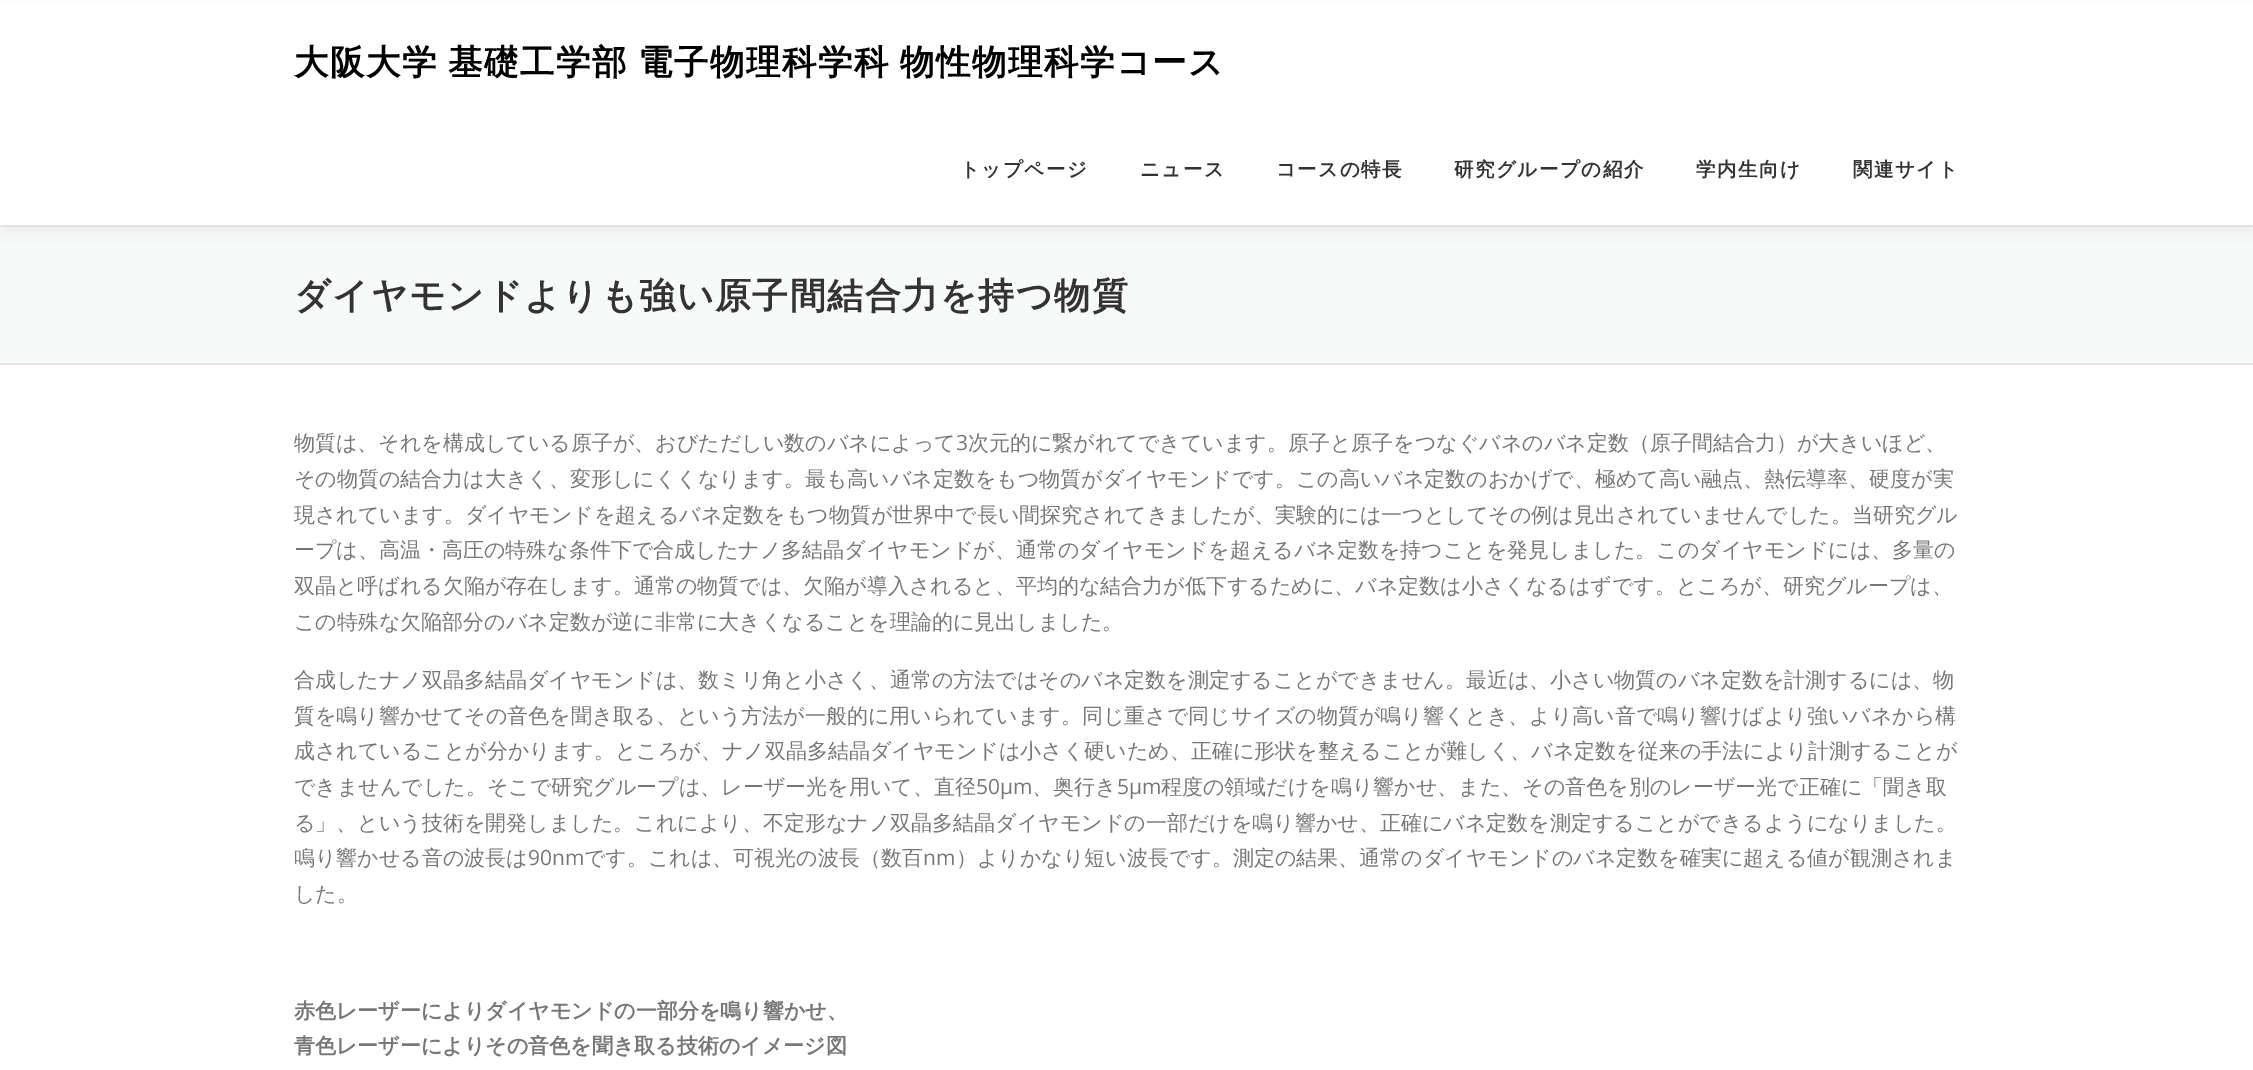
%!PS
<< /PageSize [2253 1070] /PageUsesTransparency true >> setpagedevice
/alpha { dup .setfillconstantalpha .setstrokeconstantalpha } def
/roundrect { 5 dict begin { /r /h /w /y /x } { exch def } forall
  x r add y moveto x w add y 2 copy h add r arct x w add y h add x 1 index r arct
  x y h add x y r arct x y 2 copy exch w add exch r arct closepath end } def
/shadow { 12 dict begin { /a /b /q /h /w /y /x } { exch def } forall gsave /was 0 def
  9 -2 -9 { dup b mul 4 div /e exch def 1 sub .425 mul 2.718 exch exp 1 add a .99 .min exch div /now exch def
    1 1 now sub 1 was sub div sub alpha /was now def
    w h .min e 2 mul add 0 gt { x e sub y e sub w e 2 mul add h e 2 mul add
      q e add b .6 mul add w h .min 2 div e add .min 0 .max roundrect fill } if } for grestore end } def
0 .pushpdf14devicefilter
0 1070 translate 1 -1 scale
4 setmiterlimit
1 setgray
0 0 2253 1070 rectfill
0.973 0.976 0.976 setrgbcolor
0 227 2253 136 rectfill
0.914 setgray
0 225 2253 2 rectfill
0.196 setgray
0 8 2253 225 0 7.5 0.06 shadow
1 setgray
0 2 2253 223 rectfill
/WenQuanYiZenHei-Bold [34.5 0 0 -34.5 0 0] selectfont
0 setgray
294 74 moveto -2 0 32 1.5 0 (大阪大学 基礎工学部 電子物理科学科 物性物理科学コース) awidthshow
/WenQuanYiZenHei-Bold [19.5 0 0 -19.5 0 0] selectfont
0.2 setgray
960 176 moveto 1.5 0 (トップページ) ashow
1140 176 moveto 1.5 0 (ニュース) ashow
1276 176 moveto 1.5 0 (コースの特長) ashow
1454 176 moveto 1.5 0 (研究グループの紹介) ashow
1696 176 moveto 1.5 0 (学内生向け) ashow
1853 176 moveto 1.5 0 (関連サイト) ashow
0.914 setgray
0 363 2253 2 rectfill
/WenQuanYiZenHei-Bold [36 0 0 -36 0 0] selectfont
0.2 setgray
294 308 moveto 1.5 0 (ダイヤモンドよりも強い原子間結合力を持つ物質) ashow
/WenQuanYiZenHei-Medium [21 0 0 -21 0 0] selectfont
0.467 setgray
294 450 moveto (物質は、それを構成している原子が、おびただしい数のバネによって) show
/OpenSans-Regular [21 0 0 -21 0 0] selectfont
956 450 moveto (3) show
/WenQuanYiZenHei-Medium [21 0 0 -21 0 0] selectfont
968 450 moveto (次元的に繋がれてできています。原子と原子をつなぐバネのバネ定数（原子間結合力）が大きいほど、) show
294 486 moveto (その物質の結合力は大きく、変形しにくくなります。最も高いバネ定数をもつ物質がダイヤモンドです。この高いバネ定数のおかげで、極めて高い融点、熱伝導率、硬度が実) show
294 522 moveto (現されています。ダイヤモンドを超えるバネ定数をもつ物質が世界中で長い間探究されてきましたが、実験的には一つとしてその例は見出されていませんでした。当研究グル) show
294 557 moveto (ープは、高温・高圧の特殊な条件下で合成したナノ多結晶ダイヤモンドが、通常のダイヤモンドを超えるバネ定数を持つことを発見しました。このダイヤモンドには、多量の) show
294 593 moveto (双晶と呼ばれる欠陥が存在します。通常の物質では、欠陥が導入されると、平均的な結合力が低下するために、バネ定数は小さくなるはずです。ところが、研究グループは、) show
294 629 moveto (この特殊な欠陥部分のバネ定数が逆に非常に大きくなることを理論的に見出しました。) show
294 687 moveto (合成したナノ双晶多結晶ダイヤモンドは、数ミリ角と小さく、通常の方法ではそのバネ定数を測定することができません。最近は、小さい物質のバネ定数を計測するには、物) show
294 723 moveto (質を鳴り響かせてその音色を聞き取る、という方法が一般的に用いられています。同じ重さで同じサイズの物質が鳴り響くとき、より高い音で鳴り響けばより強いバネから構) show
294 758 moveto (成されていることが分かります。ところが、ナノ双晶多結晶ダイヤモンドは小さく硬いため、正確に形状を整えることが難しく、バネ定数を従来の手法により計測することが) show
294 794 moveto (できませんでした。そこで研究グループは、レーザー光を用いて、直径) show
/OpenSans-Regular [21 0 0 -21 0 0] selectfont
976 794 moveto (50μm) show
/WenQuanYiZenHei-Medium [21 0 0 -21 0 0] selectfont
1032 794 moveto (、奥行き) show
/OpenSans-Regular [21 0 0 -21 0 0] selectfont
1117 794 moveto (5μm) show
/WenQuanYiZenHei-Medium [21 0 0 -21 0 0] selectfont
1161 794 moveto (程度の領域だけを鳴り響かせ、また、その音色を別のレーザー光で正確に「聞き取) show
294 830 moveto (る」、という技術を開発しました。これにより、不定形なナノ双晶多結晶ダイヤモンドの一部だけを鳴り響かせ、正確にバネ定数を測定することができるようになりました。) show
294 865 moveto (鳴り響かせる音の波長は) show
/OpenSans-Regular [21 0 0 -21 0 0] selectfont
528 865 moveto (90nm) show
/WenQuanYiZenHei-Medium [21 0 0 -21 0 0] selectfont
584 865 moveto (です。これは、可視光の波長（数百) show
/OpenSans-Regular [21 0 0 -21 0 0] selectfont
923 865 moveto (nm) show
/WenQuanYiZenHei-Medium [21 0 0 -21 0 0] selectfont
956 865 moveto (）よりかなり短い波長です。測定の結果、通常のダイヤモンドのバネ定数を確実に超える値が観測されま) show
294 901 moveto (した。) show
/WenQuanYiZenHei-Bold [21 0 0 -21 0 0] selectfont
294 1018 moveto (赤色レーザーによりダイヤモンドの一部分を鳴り響かせ、) show
294 1053 moveto (青色レーザーによりその音色を聞き取る技術のイメージ図) show
.poppdf14devicefilter showpage
